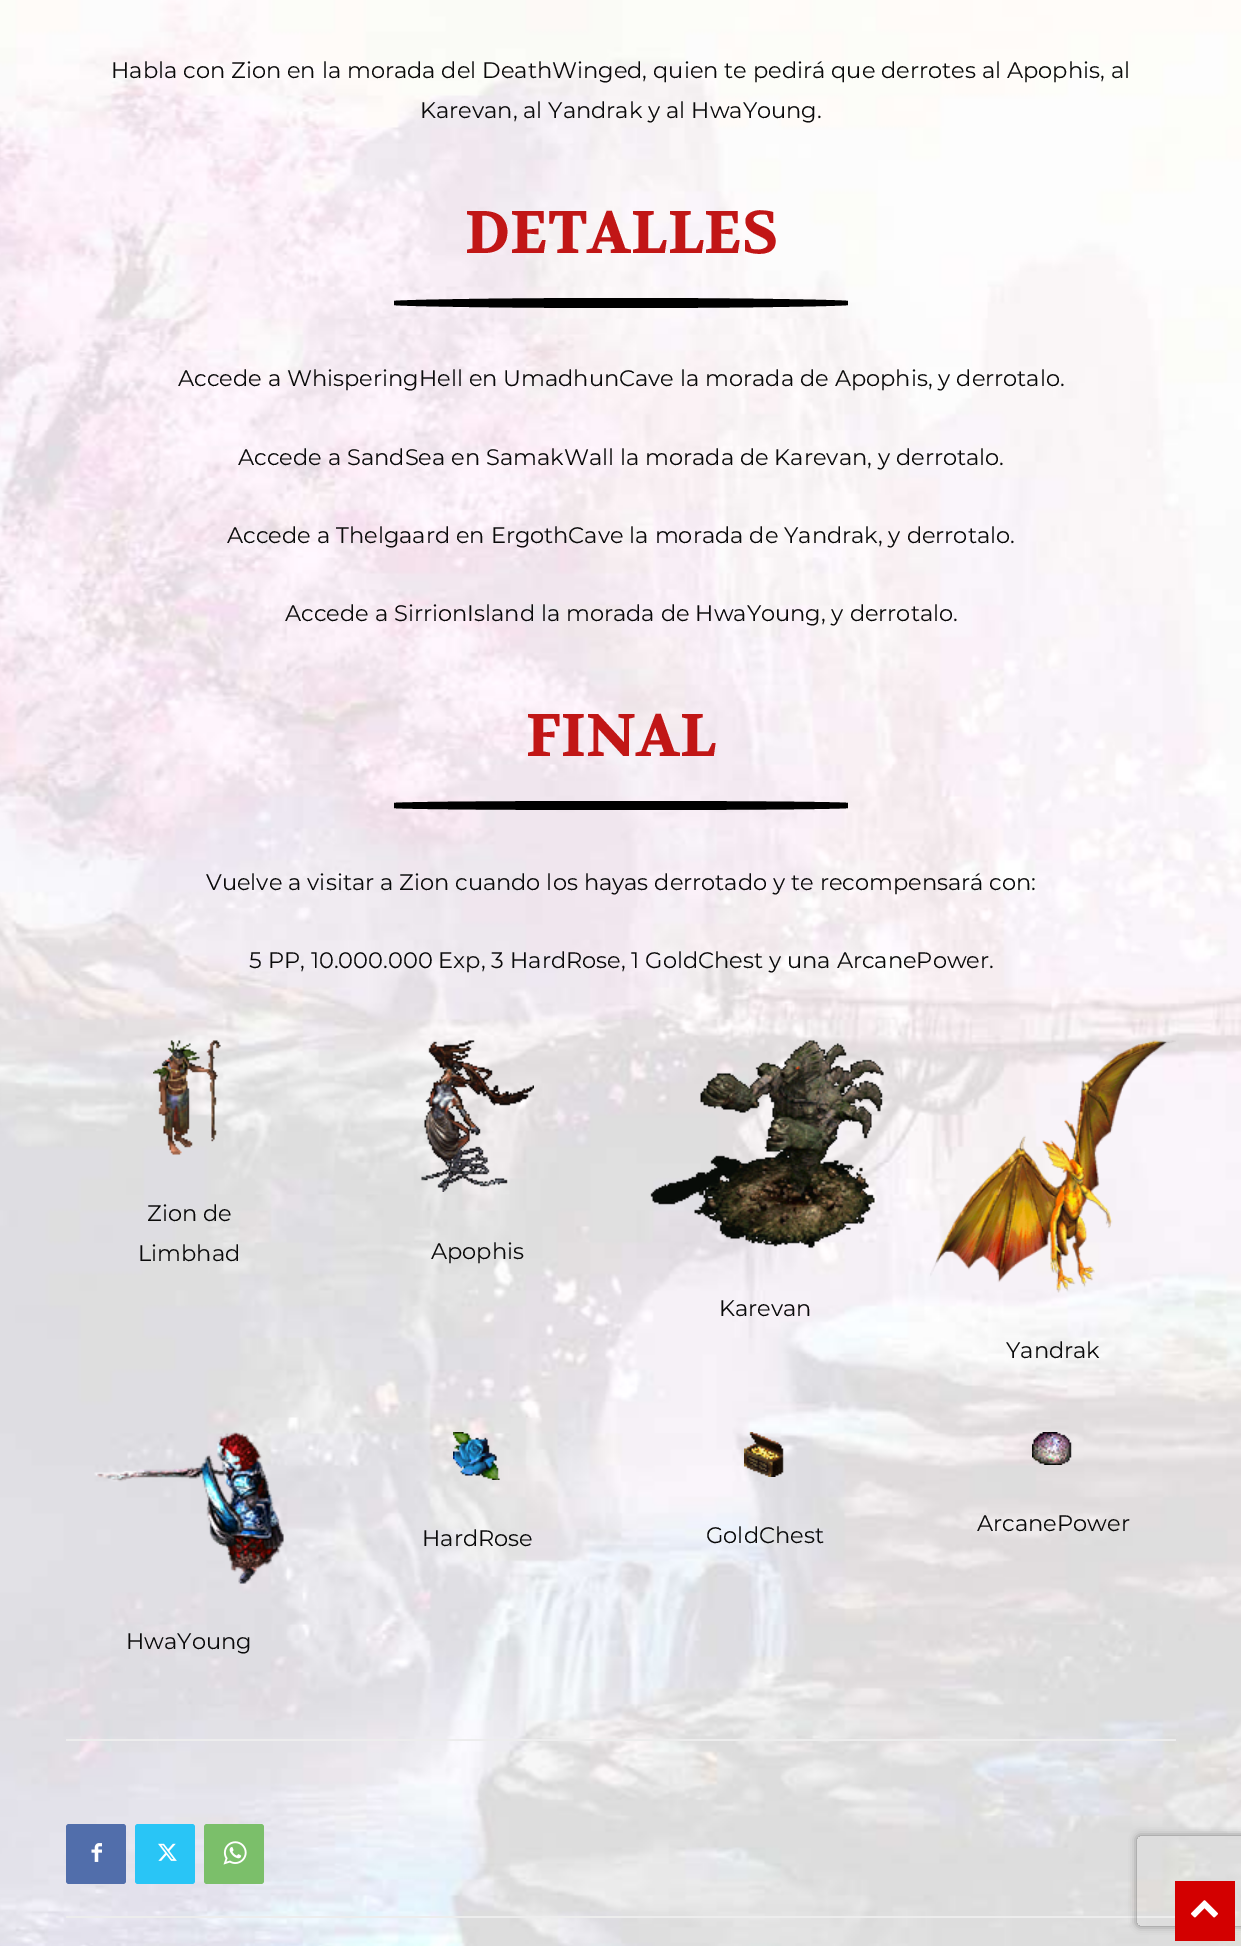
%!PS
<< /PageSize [1241 1946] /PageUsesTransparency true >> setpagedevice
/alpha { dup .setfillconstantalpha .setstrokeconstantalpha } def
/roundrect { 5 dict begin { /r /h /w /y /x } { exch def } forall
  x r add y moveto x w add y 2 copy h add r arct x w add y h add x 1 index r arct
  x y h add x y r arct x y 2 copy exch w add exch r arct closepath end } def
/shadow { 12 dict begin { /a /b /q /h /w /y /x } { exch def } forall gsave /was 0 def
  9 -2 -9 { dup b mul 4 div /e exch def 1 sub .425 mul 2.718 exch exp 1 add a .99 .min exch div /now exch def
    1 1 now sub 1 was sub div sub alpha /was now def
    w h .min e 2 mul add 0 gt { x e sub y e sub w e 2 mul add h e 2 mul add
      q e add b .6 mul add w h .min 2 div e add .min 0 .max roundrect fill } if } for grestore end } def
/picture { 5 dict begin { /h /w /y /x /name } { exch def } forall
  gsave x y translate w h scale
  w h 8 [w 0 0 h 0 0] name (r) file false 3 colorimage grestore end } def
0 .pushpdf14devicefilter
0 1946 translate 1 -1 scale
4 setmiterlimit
1 setgray
0 0 1241 1946 rectfill
(img1.rgb) 0 0 1241 1946 picture
/Montserrat-Regular [22.5 0 0 -22.5 0 0] selectfont
0.039 setgray
111 78 moveto (Habla con Zion en la morada del DeathWinged, quien te pedirá que derrotes al Apophis, al) show
420 118 moveto (Karevan, al Yandrak y al HwaYoung.) show
/Volkhov-Bold [60 0 0 -60 0 0] selectfont
0.757 0.086 0.086 setrgbcolor
465 253 moveto (DETALLES) show
0 setgray
newpath 621 298 moveto 746 298 848 300 848 301 curveto 848 305 lineto 848 306 746 308 621 308 curveto 496 308 394 306 394 305 curveto 394 301 lineto 394 300 496 298 621 298 curveto closepath fill
/Montserrat-Regular [22.5 0 0 -22.5 0 0] selectfont
0.039 setgray
178 386 moveto (Accede a WhisperingHell en UmadhunCave la morada de Apophis, y derrotalo.) show
238 465 moveto (Accede a SandSea en SamakWall la morada de Karevan, y derrotalo.) show
227 543 moveto (Accede a Thelgaard en ErgothCave la morada de Yandrak, y derrotalo.) show
285 621 moveto (Accede a SirrionIsland la morada de HwaYoung, y derrotalo.) show
/Volkhov-Bold [60 0 0 -60 0 0] selectfont
0.757 0.086 0.086 setrgbcolor
526 756 moveto (FINAL) show
0 setgray
newpath 621 801 moveto 746 801 848 802 848 803 curveto 848 808 lineto 848 809 746 810 621 810 curveto 496 810 394 809 394 808 curveto 394 803 lineto 394 802 496 801 621 801 curveto closepath fill
/Montserrat-Regular [22.5 0 0 -22.5 0 0] selectfont
0.039 setgray
206 890 moveto (Vuelve a visitar a Zion cuando los hayas derrotado y te recompensará con:) show
249 968 moveto (5 PP, 10.000.000 Exp, 3 HardRose, 1 GoldChest y una ArcanePower.) show
(img2.rgb) 153 1040 68 115 picture
147 1221 moveto (Zion de) show
138 1261 moveto (Limbhad) show
(img3.rgb) 421 1040 113 152 picture
431 1259 moveto (Apophis) show
(img4.rgb) 650 1040 234 208 picture
719 1316 moveto (Karevan) show
(img5.rgb) 930 1040 246 253 picture
1006 1358 moveto (Yandrak) show
(img6.rgb) 1032 1432 40 33 picture
977 1531 moveto (ArcanePower) show
(img7.rgb) 453 1432 47 48 picture
422 1546 moveto (HardRose) show
(img8.rgb) 744 1432 40 45 picture
706 1543 moveto (GoldChest) show
(img9.rgb) 94 1432 190 152 picture
126 1649 moveto (HwaYoung) show
0.929 setgray
66 1739 1110 2 rectfill
66 1916 1110 2 rectfill
0.318 0.431 0.671 setrgbcolor
66 1824 60 60 3 roundrect fill
(img10.rgb) 91 1843 11 19 picture
0.161 0.773 0.965 setrgbcolor
135 1824 60 60 3 roundrect fill
(img11.rgb) 158 1843 19 18 picture
0.482 0.749 0.416 setrgbcolor
204 1824 60 60 3 roundrect fill
(img12.rgb) 223 1841 24 24 picture
gsave
newpath 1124 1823 moveto 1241 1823 lineto 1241 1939 lineto 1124 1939 lineto closepath 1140 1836 moveto 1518 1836 lineto 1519.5 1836 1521 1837.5 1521 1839 curveto 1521 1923 lineto 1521 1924.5 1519.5 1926 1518 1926 curveto 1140 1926 lineto 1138.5 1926 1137 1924.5 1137 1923 curveto 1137 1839 lineto 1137 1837.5 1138.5 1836 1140 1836 curveto closepath eoclip newpath
0.502 setgray
1137 1836 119 90 3 4 1 shadow
grestore
0.827 0 0 setrgbcolor
1175 1881 60 60 rectfill
(img13.rgb) 1191 1900 27 18 picture
.poppdf14devicefilter showpage
